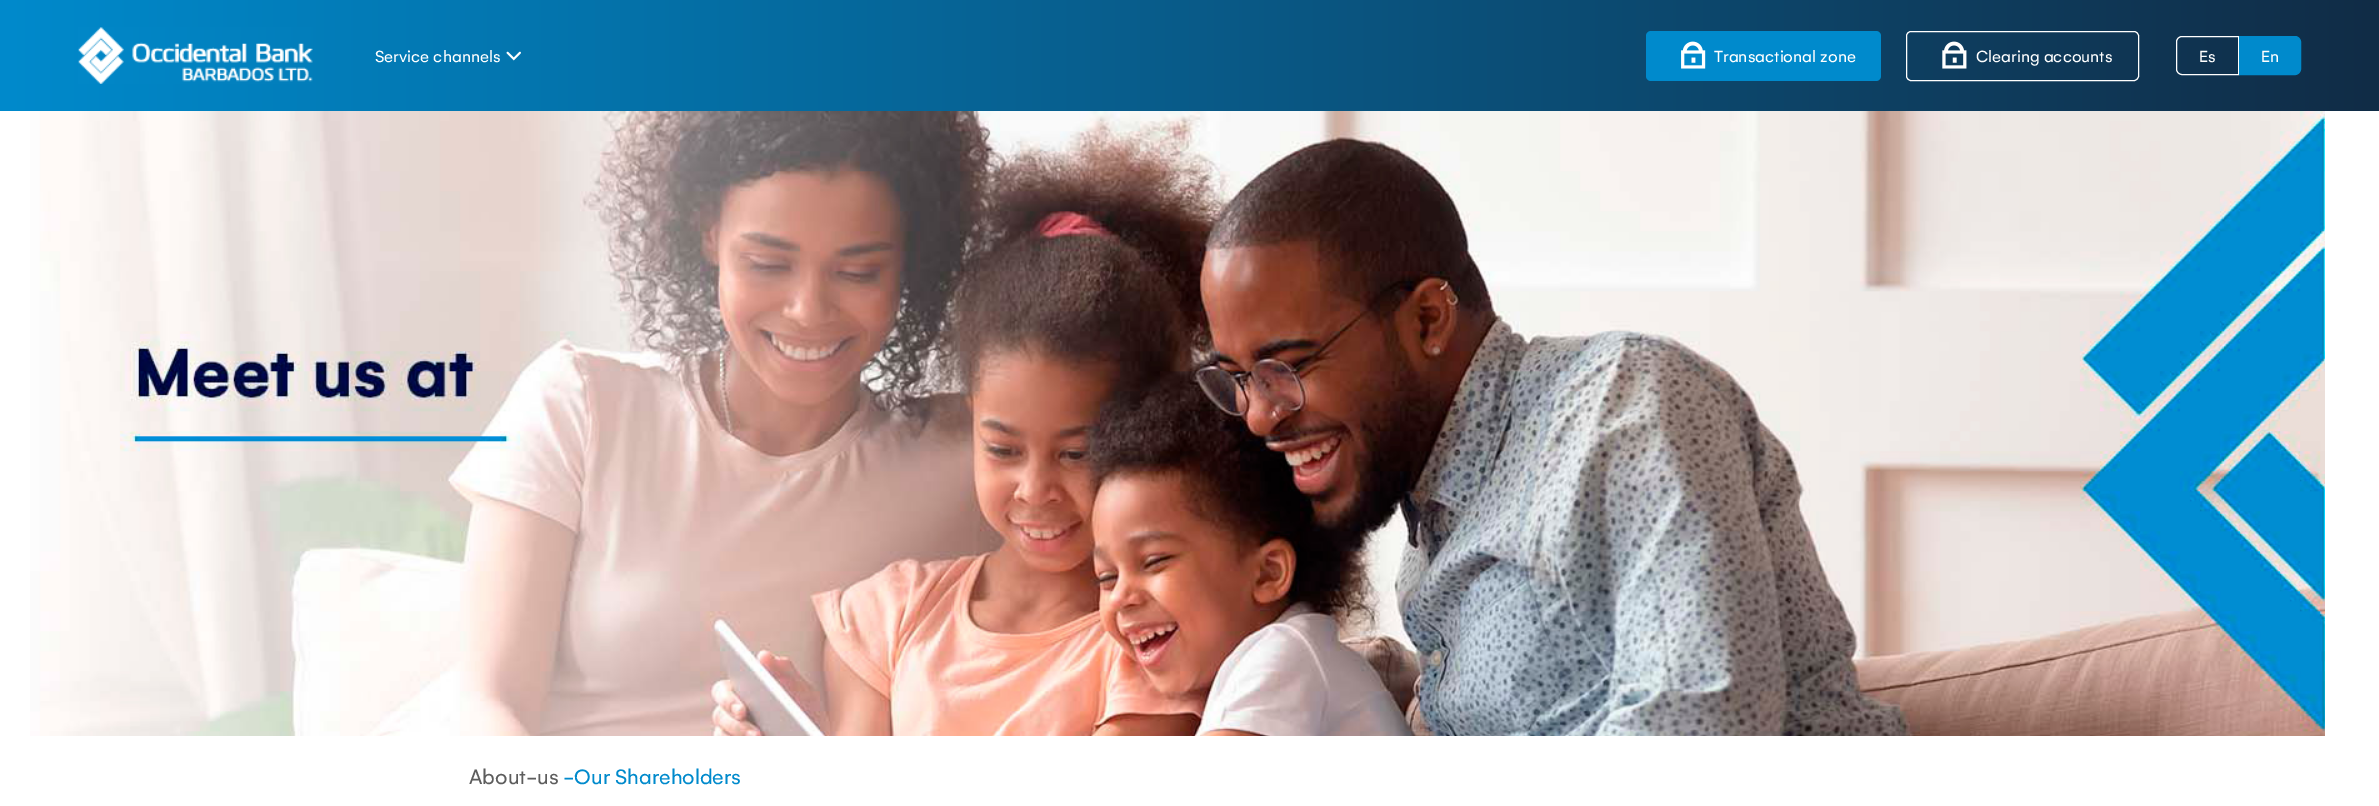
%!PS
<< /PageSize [2379 806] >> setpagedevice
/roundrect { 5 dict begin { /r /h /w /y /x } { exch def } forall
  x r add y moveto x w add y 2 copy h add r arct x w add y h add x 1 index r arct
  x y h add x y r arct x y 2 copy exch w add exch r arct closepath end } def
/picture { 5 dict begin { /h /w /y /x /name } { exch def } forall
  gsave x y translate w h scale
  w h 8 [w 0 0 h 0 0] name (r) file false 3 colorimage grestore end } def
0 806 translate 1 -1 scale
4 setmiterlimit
1 setgray
0 0 2379 806 rectfill
gsave newpath 0 0 moveto 2379 0 lineto 2379 111 lineto 0 111 lineto closepath clip newpath
<< /ShadingType 2 /ColorSpace /DeviceRGB /Coords [0 56 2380 56] /Extend [true true] /Function << /FunctionType 2 /Domain [0 1] /C0 [0 0.541 0.8] /C1 [0.067 0.173 0.275] /N 1 >> >> shfill grestore
(img1.rgb) 78 27 235 57 picture
/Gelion-Regular [17.5 0 0 -17.5 0 0] selectfont
375 62 moveto (Service channels) show
(img2.rgb) 506 51 15 10 picture
0 0.541 0.8 setrgbcolor
1646 31 235 50 5 roundrect fill
(img3.rgb) 1681 41 25 28 picture
1 setgray
1714 62 moveto (Transactional zone) show
1906.5 31.5 232 49 4.5 roundrect stroke
(img4.rgb) 1942 41 25 28 picture
1976 62 moveto (Clearing accounts) show
newpath 2182 36.5 moveto 2238.5 36.5 lineto 2238.5 74.5 lineto 2182 74.5 lineto 2179 74.5 2176.5 72 2176.5 69 curveto 2176.5 42 lineto 2176.5 39 2179 36.5 2182 36.5 curveto closepath stroke
2199 62 moveto (Es) show
0 0.541 0.8 setrgbcolor
newpath 2239.5 36.5 moveto 2295 36.5 lineto 2298 36.5 2300.5 39 2300.5 42 curveto 2300.5 69 lineto 2300.5 72 2298 74.5 2295 74.5 curveto 2239.5 74.5 lineto closepath gsave fill grestore
stroke
1 setgray
2261 62 moveto (En) show
(img5.rgb) 30 111 2295 625 picture
/Gelion-Regular [22.5 0 0 -22.5 0 0] selectfont
0.365 setgray
469 784 moveto (About-us) show
0 0.541 0.8 setrgbcolor
563 784 moveto (-Our Shareholders) show
showpage
